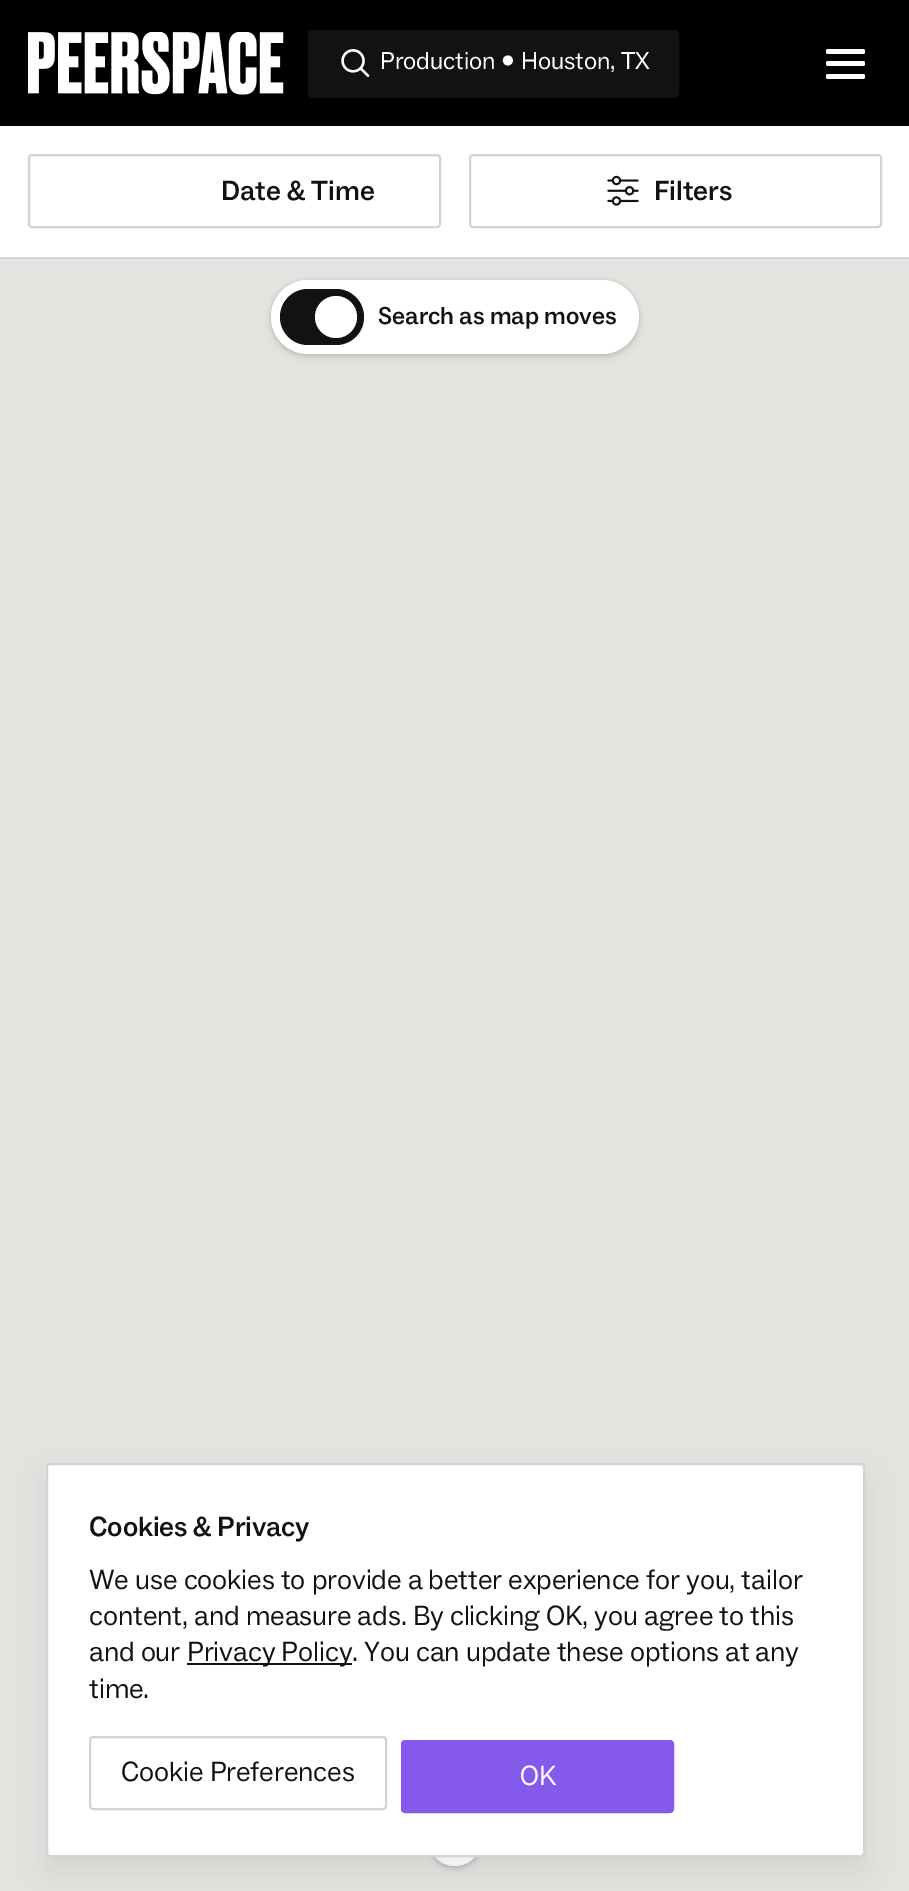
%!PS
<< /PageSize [909 1891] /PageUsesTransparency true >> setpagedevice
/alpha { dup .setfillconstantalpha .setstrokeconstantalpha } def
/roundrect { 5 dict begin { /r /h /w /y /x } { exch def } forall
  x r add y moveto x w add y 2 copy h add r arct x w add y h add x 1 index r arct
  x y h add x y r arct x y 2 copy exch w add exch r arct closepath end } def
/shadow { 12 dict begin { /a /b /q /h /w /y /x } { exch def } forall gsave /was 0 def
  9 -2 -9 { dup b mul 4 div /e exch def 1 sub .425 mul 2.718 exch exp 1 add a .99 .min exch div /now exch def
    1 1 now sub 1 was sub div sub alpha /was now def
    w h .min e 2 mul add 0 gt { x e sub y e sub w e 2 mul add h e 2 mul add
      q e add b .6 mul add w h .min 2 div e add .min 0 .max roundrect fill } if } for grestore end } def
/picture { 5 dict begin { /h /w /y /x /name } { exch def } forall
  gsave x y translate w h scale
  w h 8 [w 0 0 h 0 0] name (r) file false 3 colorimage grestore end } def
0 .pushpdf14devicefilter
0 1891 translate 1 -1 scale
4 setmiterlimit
1 setgray
0 0 909 1891 rectfill
0 setgray
0 0 909 126 rectfill
(img1.rgb) 28 32 256 63 picture
0.071 setgray
309 31 369 66 3 roundrect gsave fill grestore
2 setlinewidth
stroke
(img2.rgb) 341 49 29 28 picture
/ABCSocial-Regular [24.5 0 0 -24.5 0 0] selectfont
1 setgray
380 69 moveto (Production • Houston, TX) show
826 49 39 5 2 roundrect fill
826 61 39 5 2 roundrect fill
826 74 39 5 2 roundrect fill
0.82 0.827 0.859 setrgbcolor
0 257 909 2 rectfill
29 155 411 72 3 roundrect stroke
/ABCSocial-Medium [28 0 0 -28 0 0] selectfont
0.071 setgray
221 200 moveto (Date & Time) show
0.82 0.827 0.859 setrgbcolor
470 155 411 72 3 roundrect stroke
(img3.rgb) 607 175 32 31 picture
0.071 setgray
654 200 moveto (Filters) show
0.898 0.89 0.875 setrgbcolor
0 259 909 1632 rectfill
0.071 setgray
271 284 368 73 36.5 3.5 0.14 shadow
271 280 368 74 37 2 0.12 shadow
1 setgray
271 280 368 74 37 roundrect fill
0.071 setgray
280 289 84 56 28 roundrect fill
1 setgray
newpath 336 317 21 0 360 arc closepath fill
/ABCSocial-Medium [24.5 0 0 -24.5 0 0] selectfont
0.071 setgray
378 324 moveto (Search as map moves) show
429 1815 52 54 26 3.5 0.14 shadow
429 1811 52 55 26 2 0.12 shadow
1 setgray
429 1811 52 55 26 roundrect fill
0.129 0.141 0.161 setrgbcolor
46 1477 819 394 4 14 0.08 shadow
1 setgray
47 1464 817 392 3 roundrect gsave fill grestore
0.82 0.827 0.859 setrgbcolor
stroke
/ABCSocial-Medium [28 0 0 -28 0 0] selectfont
0.071 setgray
89 1536 moveto -0.1 0 (Cookies & Privacy) ashow
/ABCSocial-Regular [28 0 0 -28 0 0] selectfont
89 1589 moveto -0.1 0 (We use cookies to provide a better experience for you, tailor) ashow
89 1625 moveto -0.1 0 (content, and measure ads. By clicking OK, you agree to this) ashow
89 1661 moveto -0.1 0 (and our) ashow
187 1663 165 2 rectfill
187 1661 moveto -0.1 0 (Privacy Policy. You can update these options at any) ashow
89 1698 moveto -0.1 0 (time.) ashow
0.82 0.827 0.859 setrgbcolor
90 1737 296 72 3 roundrect stroke
0.071 setgray
121 1781 moveto -0.1 0 (Cookie Preferences) ashow
0.522 0.349 0.925 setrgbcolor
402 1741 271 71 3 roundrect gsave fill grestore
stroke
(img4.rgb) 521 1765 36 21 picture
.poppdf14devicefilter showpage
